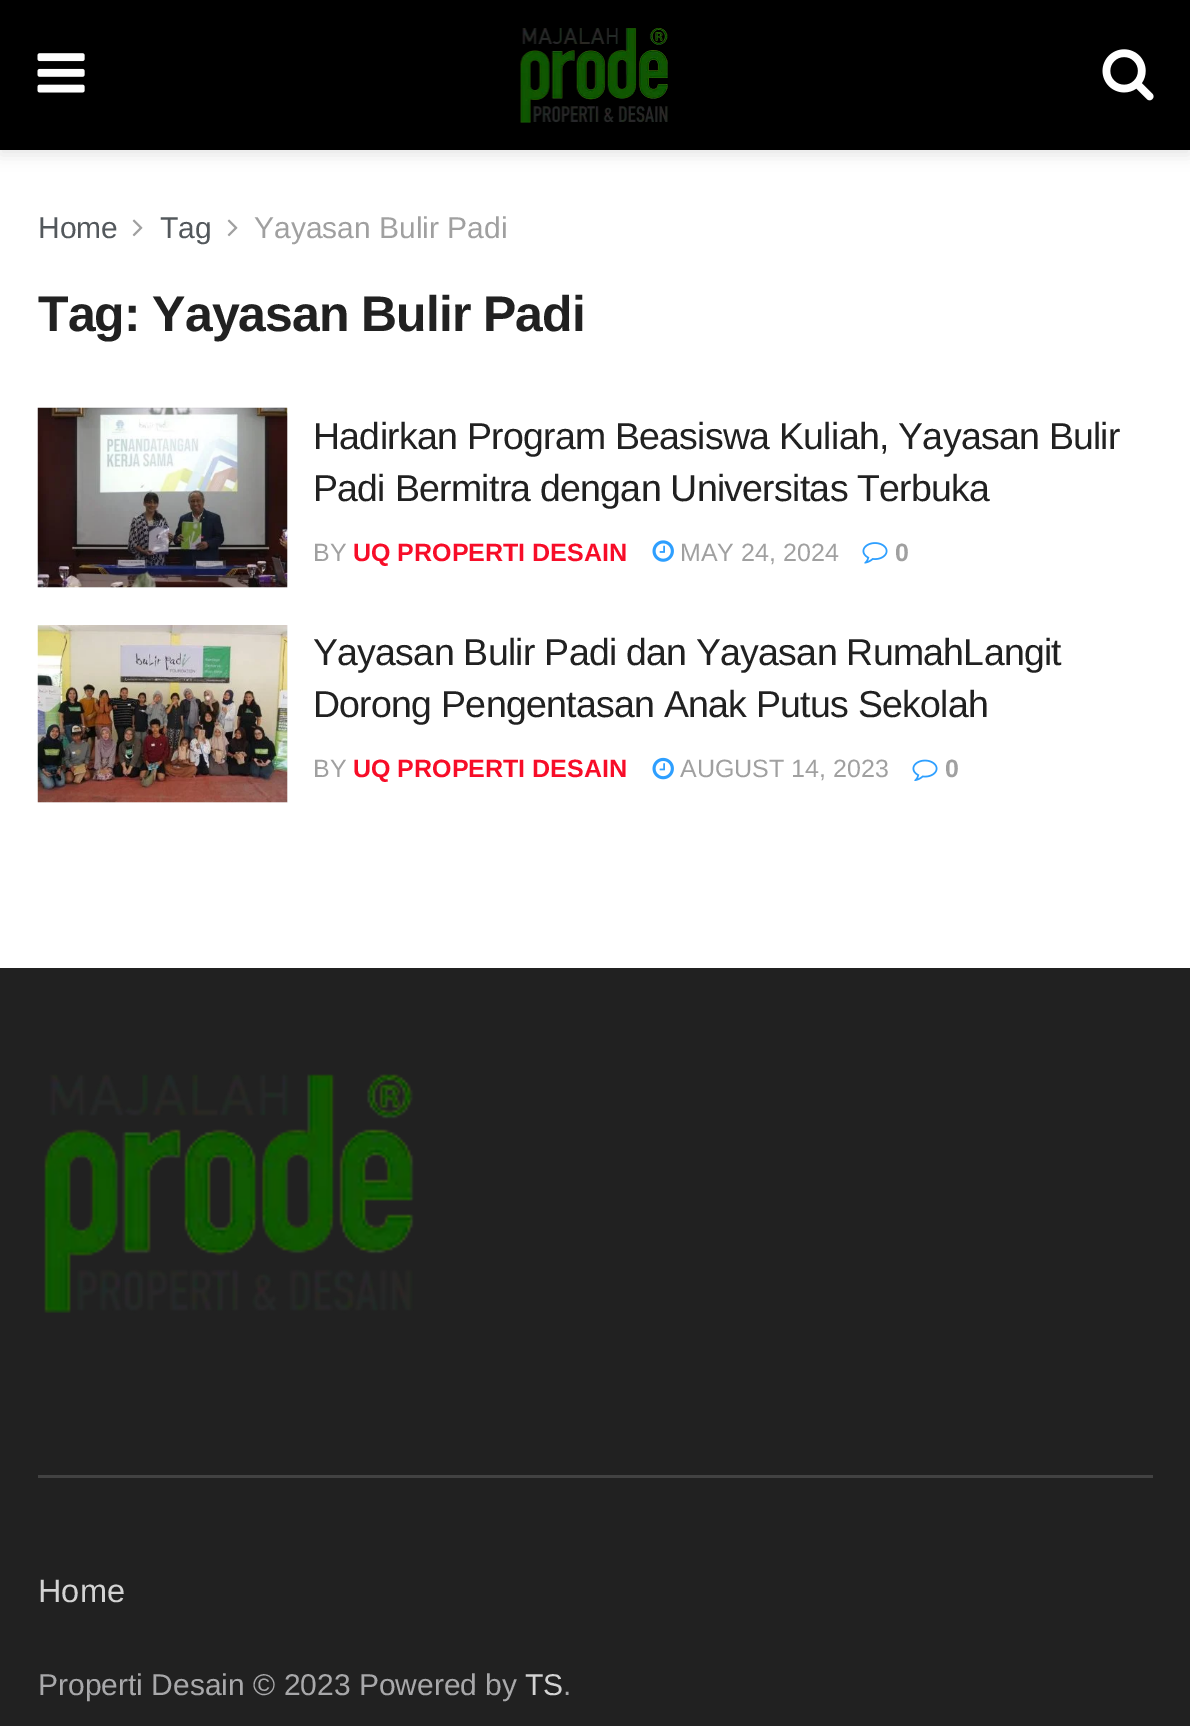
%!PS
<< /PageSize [1190 1726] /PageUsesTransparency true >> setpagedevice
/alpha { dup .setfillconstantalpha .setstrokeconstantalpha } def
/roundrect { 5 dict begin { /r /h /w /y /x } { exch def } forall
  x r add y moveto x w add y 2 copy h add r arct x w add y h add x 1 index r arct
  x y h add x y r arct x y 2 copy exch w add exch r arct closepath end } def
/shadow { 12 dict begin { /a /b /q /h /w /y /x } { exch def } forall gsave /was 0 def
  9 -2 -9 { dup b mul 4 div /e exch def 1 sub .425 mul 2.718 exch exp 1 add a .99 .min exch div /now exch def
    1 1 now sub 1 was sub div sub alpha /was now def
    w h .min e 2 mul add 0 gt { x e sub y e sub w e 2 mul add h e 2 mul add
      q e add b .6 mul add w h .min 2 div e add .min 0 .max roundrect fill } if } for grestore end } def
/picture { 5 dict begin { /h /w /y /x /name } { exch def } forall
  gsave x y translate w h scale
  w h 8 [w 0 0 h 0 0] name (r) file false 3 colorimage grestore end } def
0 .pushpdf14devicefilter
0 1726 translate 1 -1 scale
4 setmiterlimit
1 setgray
0 0 1190 1726 rectfill
0 setgray
0 5 1190 150 0 7.5 0.1 shadow
0 0 1190 150 rectfill
(img1.rgb) 37 53 48 40 picture
(img2.rgb) 520 28 148 95 picture
(img3.rgb) 1102 49 52 52 picture
/LiberationSans-Regular [30 0 0 -30 0 0] selectfont
0.325 0.345 0.361 setrgbcolor
38 238 moveto (Home) show
(img4.rgb) 132 219 11 18 picture
160 238 moveto (Tag) show
(img4.rgb) 227 219 11 18 picture
0.627 setgray
254 238 moveto (Yayasan Bulir Padi) show
/LiberationSans-Bold [50 0 0 -50 0 0] selectfont
0.129 setgray
38 331 moveto -1 0 (Tag: Yayasan Bulir Padi) ashow
0.969 setgray
38 408 250 180 rectfill
(img5.rgb) 37 407 251 181 picture
/LiberationSans-Regular [37.5 0 0 -37.5 0 0] selectfont
0.129 setgray
313 449 moveto -0.75 0 (Hadirkan Program Beasiswa Kuliah, Yayasan Bulir) ashow
313 501 moveto -0.75 0 (Padi Bermitra dengan Universitas Terbuka) ashow
/LiberationSans-Regular [25 0 0 -25 0 0] selectfont
0.627 setgray
313 561 moveto (BY) show
/LiberationSans-Bold [25 0 0 -25 0 0] selectfont
0.969 0.051 0.157 setrgbcolor
353 561 moveto (UQ PROPERTI DESAIN) show
(img6.rgb) 652 540 22 22 picture
/LiberationSans-Regular [25 0 0 -25 0 0] selectfont
0.627 setgray
680 561 moveto (MAY 24, 2024) show
(img7.rgb) 862 542 26 22 picture
/LiberationSans-Bold [25 0 0 -25 0 0] selectfont
895 561 moveto (0) show
0.969 setgray
38 625 250 178 rectfill
(img8.rgb) 37 625 251 178 picture
/LiberationSans-Regular [37.5 0 0 -37.5 0 0] selectfont
0.129 setgray
313 665 moveto -0.75 0 (Yayasan Bulir Padi dan Yayasan RumahLangit) ashow
313 717 moveto -0.75 0 (Dorong Pengentasan Anak Putus Sekolah) ashow
/LiberationSans-Regular [25 0 0 -25 0 0] selectfont
0.627 setgray
313 777 moveto (BY) show
/LiberationSans-Bold [25 0 0 -25 0 0] selectfont
0.969 0.051 0.157 setrgbcolor
353 777 moveto (UQ PROPERTI DESAIN) show
(img9.rgb) 652 757 22 23 picture
/LiberationSans-Regular [25 0 0 -25 0 0] selectfont
0.627 setgray
680 777 moveto (AUGUST 14, 2023) show
(img10.rgb) 912 759 26 22 picture
/LiberationSans-Bold [25 0 0 -25 0 0] selectfont
945 777 moveto (0) show
0.129 setgray
0 968 1190 758 rectfill
(img11.rgb) 44 1074 370 239 picture
0.259 setgray
38 1475 1115 3 rectfill
/LiberationSans-Regular [32.5 0 0 -32.5 0 0] selectfont
0.827 setgray
38 1602 moveto (Home) show
/LiberationSans-Regular [30 0 0 -30 0 0] selectfont
0.659 0.659 0.667 setrgbcolor
38 1695 moveto (Properti Desain © 2023 Powered by) show
0.827 setgray
525 1695 moveto (TS) show
0.659 0.659 0.667 setrgbcolor
563 1695 moveto (.) show
.poppdf14devicefilter showpage
